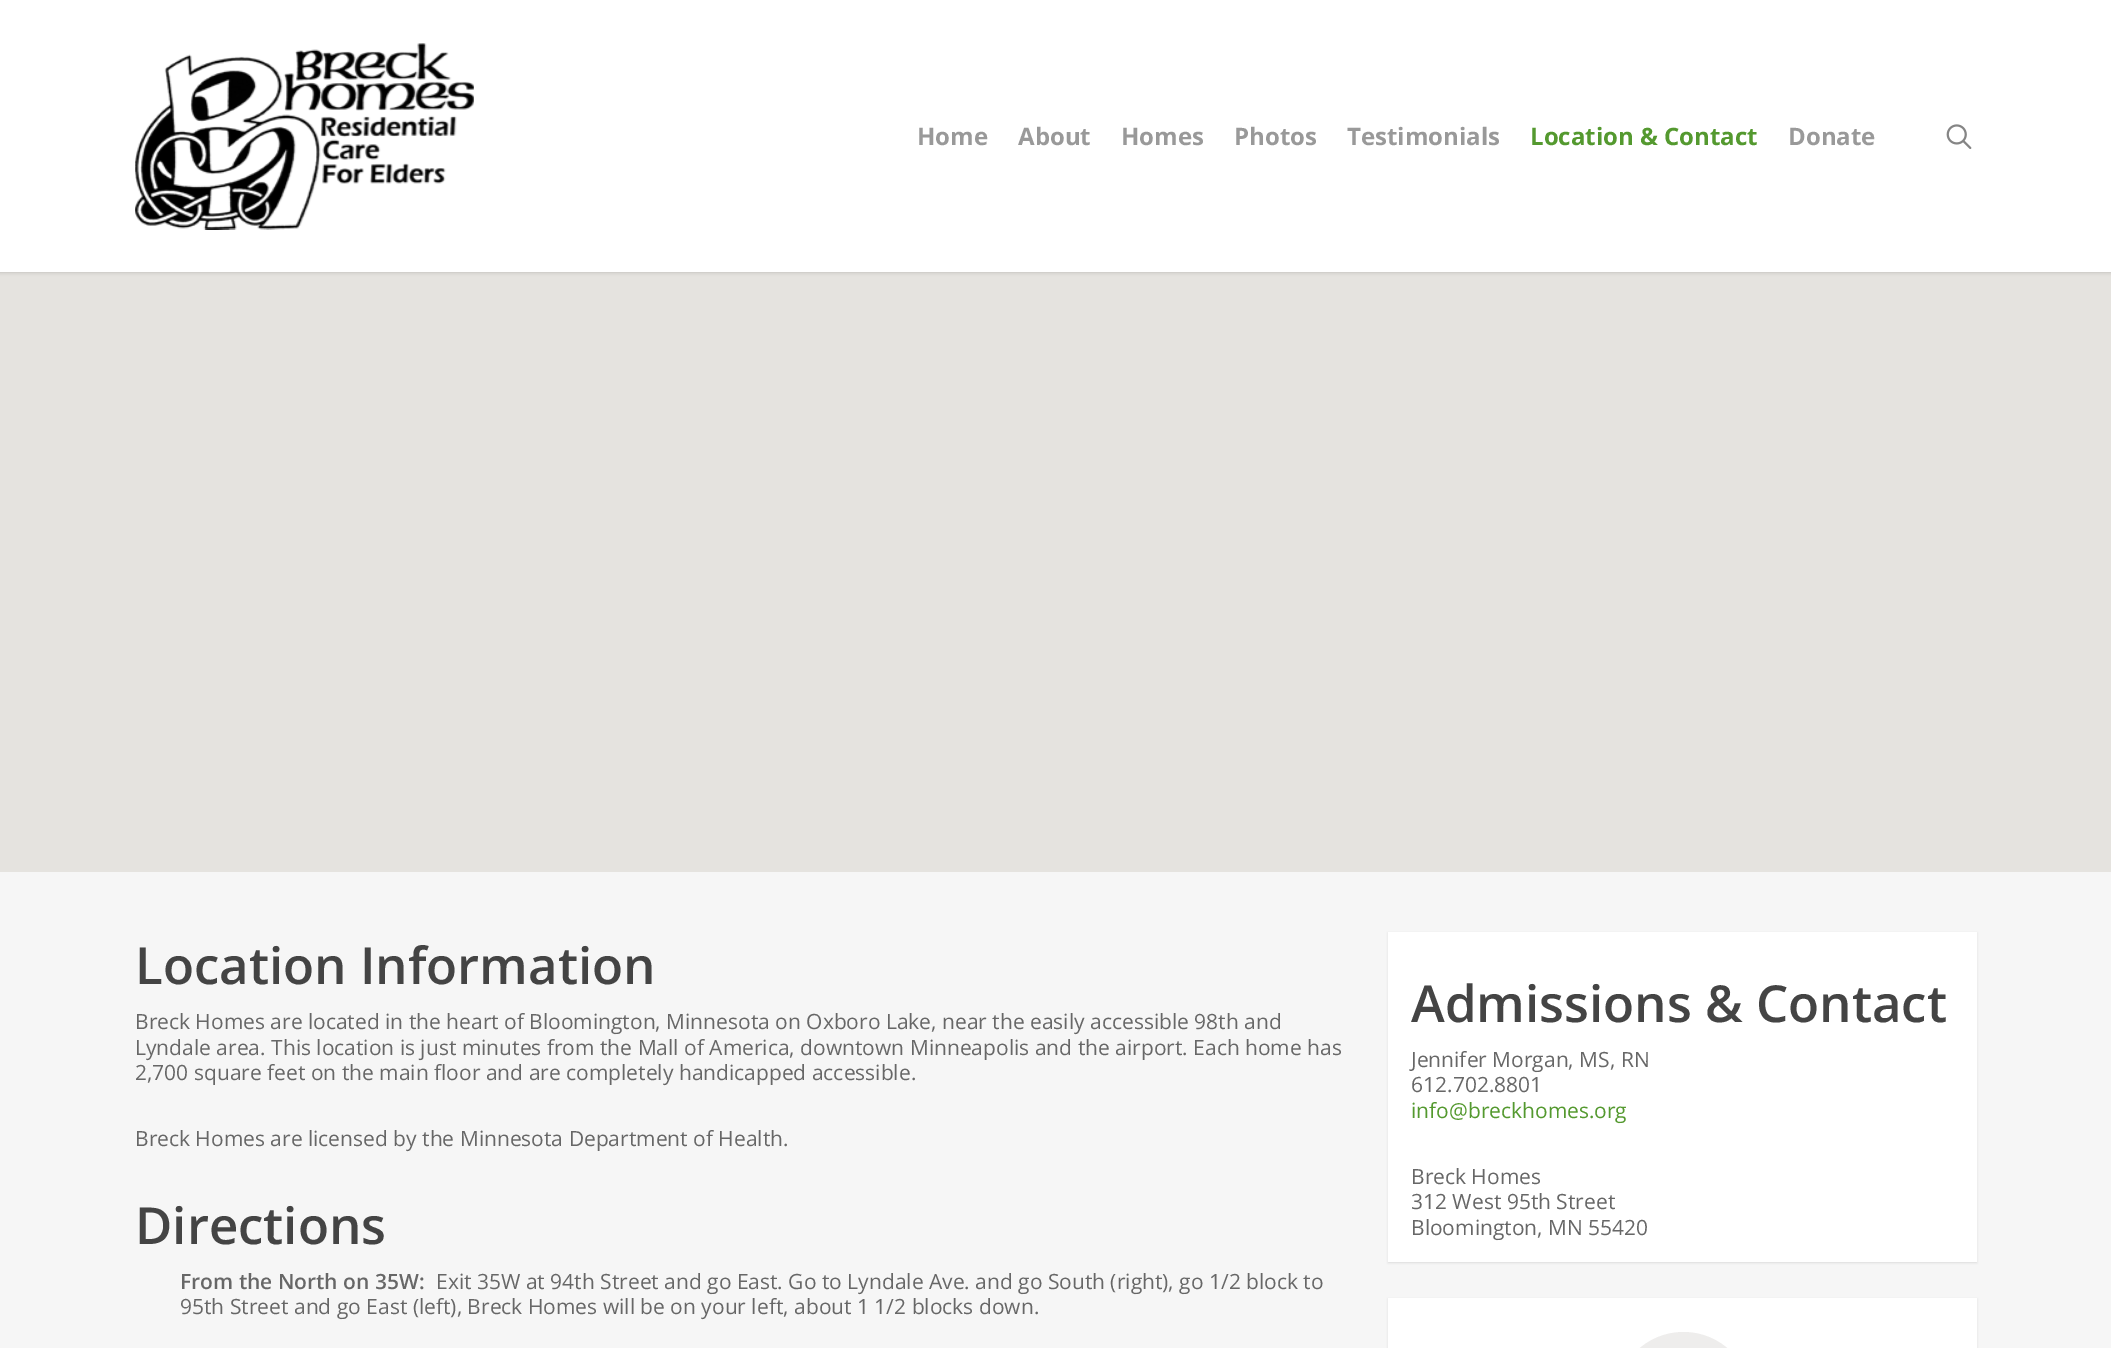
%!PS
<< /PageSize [2111 1348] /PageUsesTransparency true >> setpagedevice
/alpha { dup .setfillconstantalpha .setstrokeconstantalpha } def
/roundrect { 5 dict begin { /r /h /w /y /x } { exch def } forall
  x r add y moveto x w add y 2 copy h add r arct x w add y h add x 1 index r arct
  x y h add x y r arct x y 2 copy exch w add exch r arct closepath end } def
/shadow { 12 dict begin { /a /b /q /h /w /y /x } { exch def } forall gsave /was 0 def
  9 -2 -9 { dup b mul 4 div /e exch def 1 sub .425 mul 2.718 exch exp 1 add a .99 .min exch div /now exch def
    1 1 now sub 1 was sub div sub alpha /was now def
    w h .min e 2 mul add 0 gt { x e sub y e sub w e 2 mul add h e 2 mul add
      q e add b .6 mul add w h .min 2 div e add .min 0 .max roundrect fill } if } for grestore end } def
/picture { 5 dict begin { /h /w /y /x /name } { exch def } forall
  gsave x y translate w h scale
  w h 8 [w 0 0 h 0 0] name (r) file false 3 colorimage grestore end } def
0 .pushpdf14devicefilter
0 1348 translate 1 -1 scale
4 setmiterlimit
0.965 setgray
0 0 2111 1348 rectfill
0.898 0.89 0.875 setrgbcolor
0 272 2111 600 rectfill
0 setgray
0 0 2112 272 0 2 0.22 shadow
1 setgray
0 0 2111 272 rectfill
(img1.rgb) 135 43 339 187 picture
/OpenSans-Bold [24 0 0 -24 0 0] selectfont
0.6 setgray
917 145 moveto (Home) show
1018 145 moveto (About) show
1121 145 moveto (Homes) show
1234 145 moveto (Photos) show
1347 145 moveto (Testimonials) show
0.329 0.6 0.184 setrgbcolor
1530 145 moveto (Location & Contact) show
0.6 setgray
1788 145 moveto (Donate) show
(img2.rgb) 1946 124 26 25 picture
/OpenSans-SemiBold [51 0 0 -51 0 0] selectfont
0.267 setgray
135 984 moveto (Location Information) show
/OpenSans-Regular [21 0 0 -21 0 0] selectfont
0.404 setgray
135 1029 moveto (Breck Homes are located in the heart of Bloomington, Minnesota on Oxboro Lake, near the easily accessible 98th and) show
135 1055 moveto (Lyndale area. This location is just minutes from the Mall of America, downtown Minneapolis and the airport. Each home has) show
135 1080 moveto (2,700 square feet on the main floor and are completely handicapped accessible.) show
135 1146 moveto (Breck Homes are licensed by the Minnesota Department of Health.) show
/OpenSans-SemiBold [51 0 0 -51 0 0] selectfont
0.267 setgray
135 1244 moveto (Directions) show
/OpenSans-SemiBold [21 0 0 -21 0 0] selectfont
0.404 setgray
180 1289 moveto (From the North on 35W:) show
/OpenSans-Regular [21 0 0 -21 0 0] selectfont
436 1289 moveto (Exit 35W at 94th Street and go East. Go to Lyndale Ave. and go South \(right\), go 1/2 block to) show
180 1314 moveto (95th Street and go East \(left\), Breck Homes will be on your left, about 1 1/2 blocks down.) show
0 setgray
1388 933 589 330 0 1 0.1 shadow
1 setgray
1388 932 589 330 rectfill
/OpenSans-SemiBold [51 0 0 -51 0 0] selectfont
0.267 setgray
1411 1022 moveto (Admissions & Contact) show
/OpenSans-Regular [21 0 0 -21 0 0] selectfont
0.404 setgray
1411 1067 moveto (Jennifer Morgan, MS, RN) show
1411 1092 moveto (612.702.8801) show
0.329 0.6 0.184 setrgbcolor
1411 1118 moveto (info@breckhomes.org) show
0.404 setgray
1411 1184 moveto (Breck Homes) show
1411 1209 moveto (312 West 95th Street) show
1411 1235 moveto (Bloomington, MN 55420) show
0 setgray
1388 1299 589 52 0 1 0.1 shadow
1 setgray
1388 1298 589 50 rectfill
0.933 0.929 0.925 setrgbcolor
1616 1332 135 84 67.5 roundrect fill
.poppdf14devicefilter showpage
